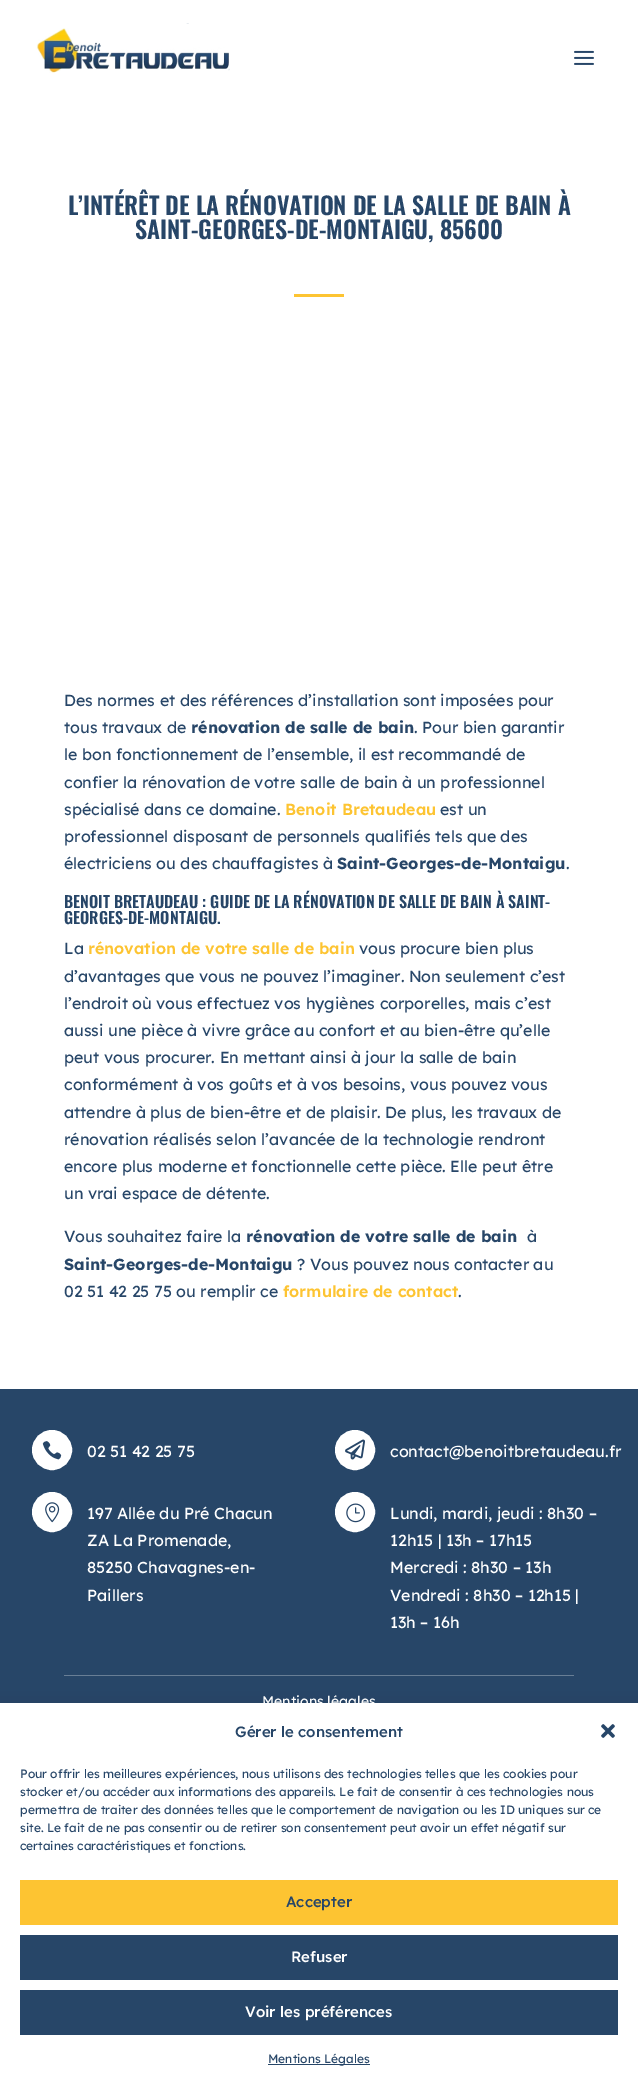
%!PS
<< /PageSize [638 2087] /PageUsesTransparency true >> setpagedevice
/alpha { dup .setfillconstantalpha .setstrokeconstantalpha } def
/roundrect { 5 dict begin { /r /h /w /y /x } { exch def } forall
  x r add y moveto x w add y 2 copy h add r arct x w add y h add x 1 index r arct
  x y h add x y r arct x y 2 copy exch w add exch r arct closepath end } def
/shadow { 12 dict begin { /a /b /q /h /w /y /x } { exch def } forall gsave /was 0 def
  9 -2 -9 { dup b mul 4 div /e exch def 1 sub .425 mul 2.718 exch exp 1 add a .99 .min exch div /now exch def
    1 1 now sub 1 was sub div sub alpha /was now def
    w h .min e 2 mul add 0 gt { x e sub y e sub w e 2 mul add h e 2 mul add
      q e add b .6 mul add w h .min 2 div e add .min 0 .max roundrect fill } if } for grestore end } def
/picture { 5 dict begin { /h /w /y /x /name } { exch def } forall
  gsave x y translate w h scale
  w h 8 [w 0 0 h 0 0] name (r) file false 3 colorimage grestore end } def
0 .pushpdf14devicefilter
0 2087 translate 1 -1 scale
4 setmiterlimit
1 setgray
0 0 638 2087 rectfill
(img1.rgb) 36 23 194 50 picture
(img2.rgb) 574 50 20 15 picture
/Oswald-SemiBold [24 0 0 -24 0 0] selectfont
0.153 0.275 0.408 setrgbcolor
68 215 moveto (L’INTÉRÊT DE LA RÉNOVATION DE LA SALLE DE BAIN À) show
135 239 moveto (SAINT-GEORGES-DE-MONTAIGU, 85600) show
0.992 0.769 0.196 setrgbcolor
294 294 50 3 rectfill
/Lexend-Regular [16 0 0 -16 0 0] selectfont
0.153 0.275 0.408 setrgbcolor
64 706 moveto (Des normes et des références d’installation sont imposées pour) show
64 733 moveto (tous travaux de) show
/Lexend-Bold [16 0 0 -16 0 0] selectfont
191 733 moveto (rénovation de salle de bain) show
/Lexend-Regular [16 0 0 -16 0 0] selectfont
414 733 moveto (. Pour bien garantir) show
64 760 moveto (le bon fonctionnement de l’ensemble, il est recommandé de) show
64 788 moveto (confier la rénovation de votre salle de bain à un professionnel) show
64 815 moveto (spécialisé dans ce domaine.) show
/Lexend-SemiBold [16 0 0 -16 0 0] selectfont
0.992 0.769 0.196 setrgbcolor
285 815 moveto (Benoit Bretaudeau) show
/Lexend-Regular [16 0 0 -16 0 0] selectfont
0.153 0.275 0.408 setrgbcolor
440 815 moveto (est un) show
64 842 moveto (professionnel disposant de personnels qualifiés tels que des) show
64 869 moveto (électriciens ou des chauffagistes à) show
/Lexend-Bold [16 0 0 -16 0 0] selectfont
337 869 moveto (Saint-Georges-de-Montaigu) show
/Lexend-Regular [16 0 0 -16 0 0] selectfont
566 869 moveto (.) show
/Oswald-SemiBold [16 0 0 -16 0 0] selectfont
64 908 moveto (BENOIT BRETAUDEAU : GUIDE DE LA RÉNOVATION DE SALLE DE BAIN À SAINT-) show
64 924 moveto (GEORGES-DE-MONTAIGU.) show
/Lexend-Regular [16 0 0 -16 0 0] selectfont
64 954 moveto (La) show
/Lexend-SemiBold [16 0 0 -16 0 0] selectfont
0.992 0.769 0.196 setrgbcolor
88 954 moveto (rénovation de votre salle de bain) show
/Lexend-Regular [16 0 0 -16 0 0] selectfont
0.153 0.275 0.408 setrgbcolor
359 954 moveto (vous procure bien plus) show
64 982 moveto (d’avantages que vous ne pouvez l’imaginer. Non seulement c’est) show
64 1009 moveto (l’endroit où vous effectuez vos hygiènes corporelles, mais c’est) show
64 1036 moveto (aussi une pièce à vivre grâce au confort et au bien-être qu’elle) show
64 1063 moveto (peut vous procurer. En mettant ainsi à jour la salle de bain) show
64 1090 moveto (conformément à vos goûts et à vos besoins, vous pouvez vous) show
64 1118 moveto (attendre à plus de bien-être et de plaisir. De plus, les travaux de) show
64 1145 moveto (rénovation réalisés selon l’avancée de la technologie rendront) show
64 1172 moveto (encore plus moderne et fonctionnelle cette pièce. Elle peut être) show
64 1199 moveto (un vrai espace de détente.) show
64 1242 moveto (Vous souhaitez faire la) show
/Lexend-Bold [16 0 0 -16 0 0] selectfont
246 1242 moveto (rénovation de votre salle de bain) show
/Lexend-Regular [16 0 0 -16 0 0] selectfont
527 1242 moveto (à) show
/Lexend-Bold [16 0 0 -16 0 0] selectfont
64 1270 moveto (Saint-Georges-de-Montaigu) show
/Lexend-Regular [16 0 0 -16 0 0] selectfont
297 1270 moveto (? Vous pouvez nous contacter au) show
64 1297 moveto (02 51 42 25 75 ou remplir ce) show
/Lexend-SemiBold [16 0 0 -16 0 0] selectfont
0.992 0.769 0.196 setrgbcolor
283 1297 moveto (formulaire de contact) show
/Lexend-Regular [16 0 0 -16 0 0] selectfont
0.153 0.275 0.408 setrgbcolor
458 1297 moveto (.) show
0 1389 638 314 rectfill
1 setgray
newpath 52 1450 17.5 0 360 arc closepath gsave fill grestore
5 setlinewidth
stroke
(img3.rgb) 42 1441 20 19 picture
87 1457 moveto (02 51 42 25 75) show
newpath 355 1450 17.5 0 360 arc closepath gsave fill grestore
stroke
(img4.rgb) 345 1439 20 21 picture
390 1457 moveto (contact@benoitbretaudeau.fr) show
newpath 52 1512 17.5 0 360 arc closepath gsave fill grestore
stroke
(img5.rgb) 45 1502 15 21 picture
87 1519 moveto (197 Allée du Pré Chacun) show
87 1546 moveto (ZA La Promenade,) show
87 1573 moveto (85250 Chavagnes-en-) show
87 1601 moveto (Paillers) show
newpath 355 1512 17.5 0 360 arc closepath gsave fill grestore
stroke
(img6.rgb) 346 1503 19 20 picture
390 1519 moveto (Lundi, mardi, jeudi : 8h30 –) show
390 1546 moveto (12h15 | 13h – 17h15) show
390 1573 moveto (Mercredi : 8h30 – 13h) show
390 1601 moveto (Vendredi : 8h30 – 12h15 |) show
390 1628 moveto (13h – 16h) show
0.408 0.494 0.584 setrgbcolor
64 1675 510 1 rectfill
/Lexend-Regular [14 0 0 -14 0 0] selectfont
1 setgray
262 1706 moveto (Mentions légales) show
0 setgray
0 1713 638 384 0 10 0.19 shadow
1 setgray
0 1703 638 384 rectfill
/Lexend-Medium [15 0 0 -15 0 0] selectfont
0.153 0.275 0.408 setrgbcolor
235 1737 moveto (Gérer le consentement) show
(img7.rgb) 601 1724 14 14 picture
/Lexend-Regular [12 0 0 -12 0 0] selectfont
20 1778 moveto (Pour offrir les meilleures expériences, nous utilisons des technologies telles que les cookies pour) show
20 1796 moveto (stocker et/ou accéder aux informations des appareils. Le fait de consentir à ces technologies nous) show
20 1814 moveto (permettra de traiter des données telles que le comportement de navigation ou les ID uniques sur ce) show
20 1832 moveto (site. Le fait de ne pas consentir ou de retirer son consentement peut avoir un effet négatif sur) show
20 1850 moveto (certaines caractéristiques et fonctions.) show
0.992 0.769 0.196 setrgbcolor
20 1880 598 45 rectfill
/Lexend-Medium [15 0 0 -15 0 0] selectfont
0.153 0.275 0.408 setrgbcolor
286 1907 moveto (Accepter) show
20 1935 598 45 rectfill
1 setgray
291 1962 moveto (Refuser) show
0.153 0.275 0.408 setrgbcolor
20 1990 598 45 rectfill
1 setgray
245 2017 moveto (Voir les préférences) show
0.153 0.275 0.408 setrgbcolor
268 2064 102 1 rectfill
/Lexend-Regular [12 0 0 -12 0 0] selectfont
268 2063 moveto (Mentions Légales) show
.poppdf14devicefilter showpage
